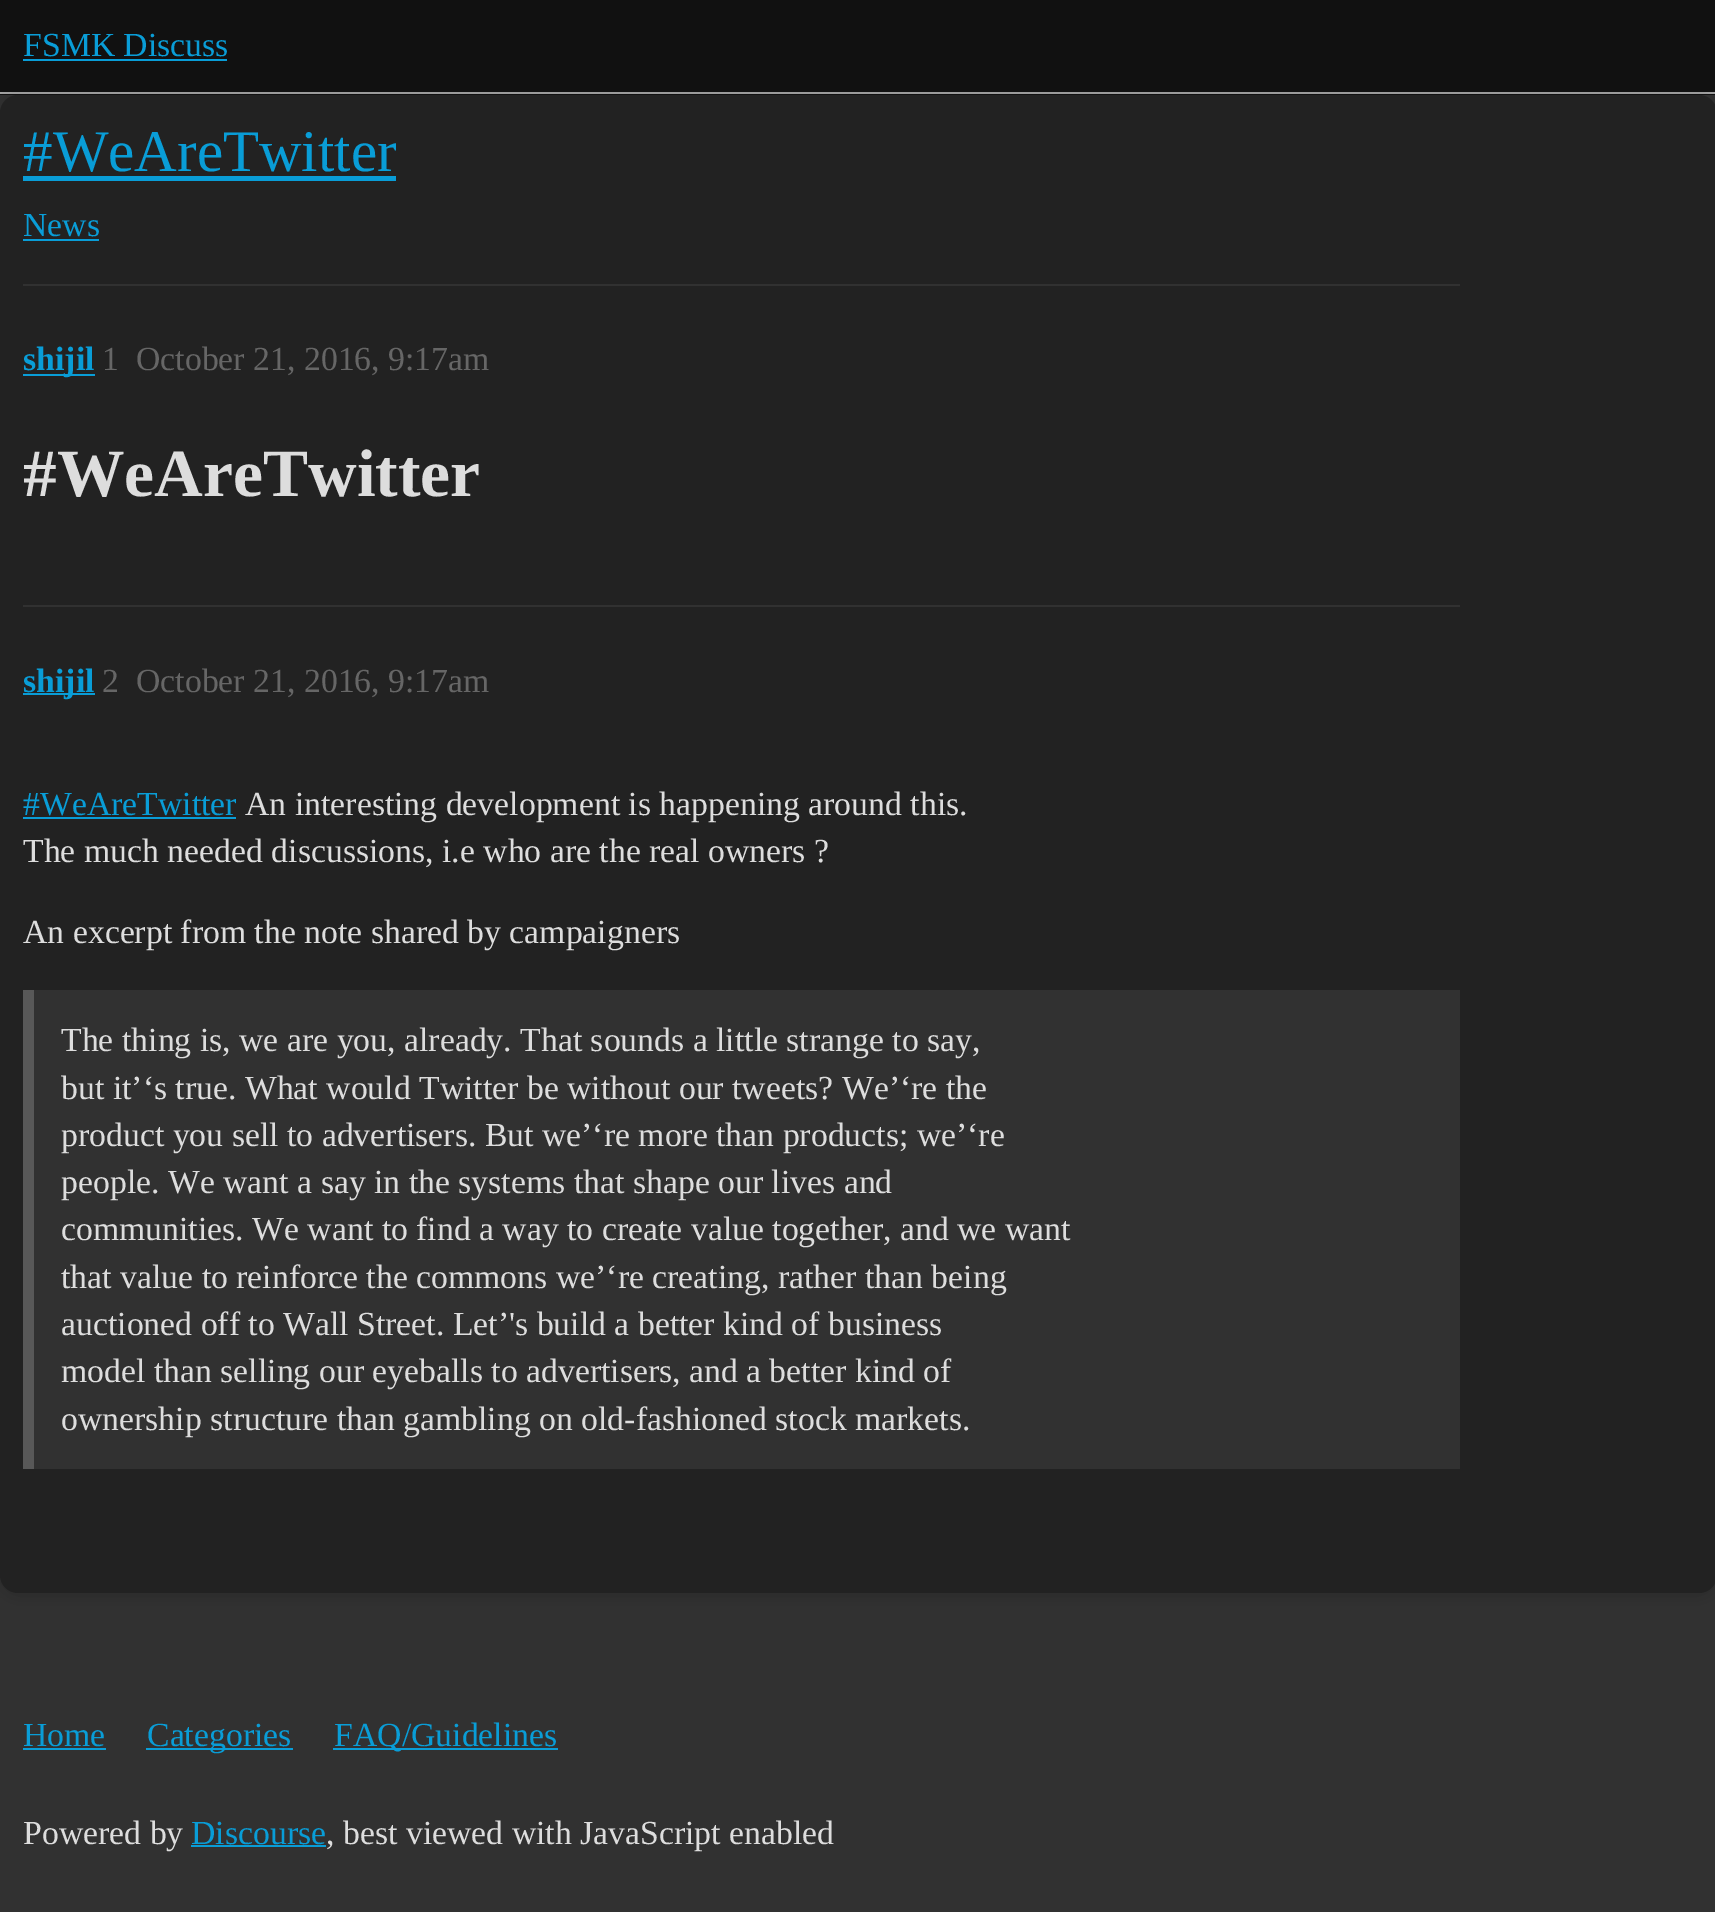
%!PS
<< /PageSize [1715 1912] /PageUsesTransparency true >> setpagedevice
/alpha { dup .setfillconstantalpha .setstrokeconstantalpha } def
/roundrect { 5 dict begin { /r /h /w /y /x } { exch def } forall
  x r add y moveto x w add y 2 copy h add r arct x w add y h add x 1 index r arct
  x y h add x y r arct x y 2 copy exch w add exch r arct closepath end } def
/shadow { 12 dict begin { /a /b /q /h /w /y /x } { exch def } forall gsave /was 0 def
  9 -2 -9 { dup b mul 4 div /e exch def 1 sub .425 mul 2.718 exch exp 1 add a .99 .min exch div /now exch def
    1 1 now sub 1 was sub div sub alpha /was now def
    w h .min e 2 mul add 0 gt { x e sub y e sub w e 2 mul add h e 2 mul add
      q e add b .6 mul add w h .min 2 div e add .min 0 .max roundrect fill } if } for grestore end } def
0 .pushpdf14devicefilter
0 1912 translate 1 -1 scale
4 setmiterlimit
0.192 setgray
0 0 1715 1912 rectfill
0.067 setgray
0 0 1715 95 rectfill
0.643 setgray
0 92 1715 2 rectfill
/LiberationSerif-Regular [33.75 0 0 -33.75 0 0] selectfont
0.035 0.616 0.843 setrgbcolor
23 56 moveto (FSMK Discuss) show
23 59 204 2 rectfill
0 setgray
0 97 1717 1498 18 9 0.18 shadow
0.133 setgray
0 95 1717 1498 18 roundrect fill
/LiberationSerif-Regular [59 0 0 -59 0 0] selectfont
0.035 0.616 0.843 setrgbcolor
23 171 moveto (#WeAreTwitter) show
23 176 373 5 rectfill
/LiberationSerif-Regular [33.75 0 0 -33.75 0 0] selectfont
23 236 moveto (News) show
23 239 76 2 rectfill
0.192 setgray
23 284 1437 2 rectfill
0.035 0.616 0.843 setrgbcolor
23 374 72 2 rectfill
/LiberationSerif-Bold [33.75 0 0 -33.75 0 0] selectfont
23 370 moveto (shijil) show
/LiberationSerif-Regular [33.75 0 0 -33.75 0 0] selectfont
0.4 setgray
102 370 moveto (1) show
136 370 moveto (October 21, 2016, 9:17am) show
/LiberationSerif-Bold [67.5 0 0 -67.5 0 0] selectfont
0.867 setgray
23 496 moveto (#WeAreTwitter) show
0.192 setgray
23 605 1437 2 rectfill
0.035 0.616 0.843 setrgbcolor
23 693 72 2 rectfill
/LiberationSerif-Bold [33.75 0 0 -33.75 0 0] selectfont
23 692 moveto (shijil) show
/LiberationSerif-Regular [33.75 0 0 -33.75 0 0] selectfont
0.4 setgray
102 692 moveto (2) show
136 692 moveto (October 21, 2016, 9:17am) show
0.035 0.616 0.843 setrgbcolor
23 815 moveto (#WeAreTwitter) show
23 817 213 2 rectfill
0.867 setgray
245 815 moveto (An interesting development is happening around this.) show
23 862 moveto (The much needed discussions, i.e who are the real owners ?) show
23 943 moveto (An excerpt from the note shared by campaigners) show
0.192 setgray
34 990 1426 479 rectfill
0.345 setgray
23 990 11 479 rectfill
0.867 setgray
61 1051 moveto (The thing is, we are you, already. That sounds a little strange to say,) show
61 1099 moveto (but it’‘s true. What would Twitter be without our tweets? We’‘re the) show
61 1146 moveto (product you sell to advertisers. But we’‘re more than products; we’‘re) show
61 1193 moveto (people. We want a say in the systems that shape our lives and) show
61 1240 moveto (communities. We want to find a way to create value together, and we want) show
61 1288 moveto (that value to reinforce the commons we’‘re creating, rather than being) show
61 1335 moveto (auctioned off to Wall Street. Let’'s build a better kind of business) show
61 1382 moveto (model than selling our eyeballs to advertisers, and a better kind of) show
61 1430 moveto (ownership structure than gambling on old-fashioned stock markets.) show
0.035 0.616 0.843 setrgbcolor
23 1746 moveto (Home) show
23 1748 83 2 rectfill
146 1748 147 2 rectfill
147 1746 moveto (Categories) show
333 1748 225 2 rectfill
334 1746 moveto (FAQ/Guidelines) show
0.867 setgray
23 1844 moveto (Powered by) show
0.035 0.616 0.843 setrgbcolor
191 1844 moveto (Discourse) show
191 1845 135 2 rectfill
0.867 setgray
326 1844 moveto (, best viewed with JavaScript enabled) show
.poppdf14devicefilter showpage
